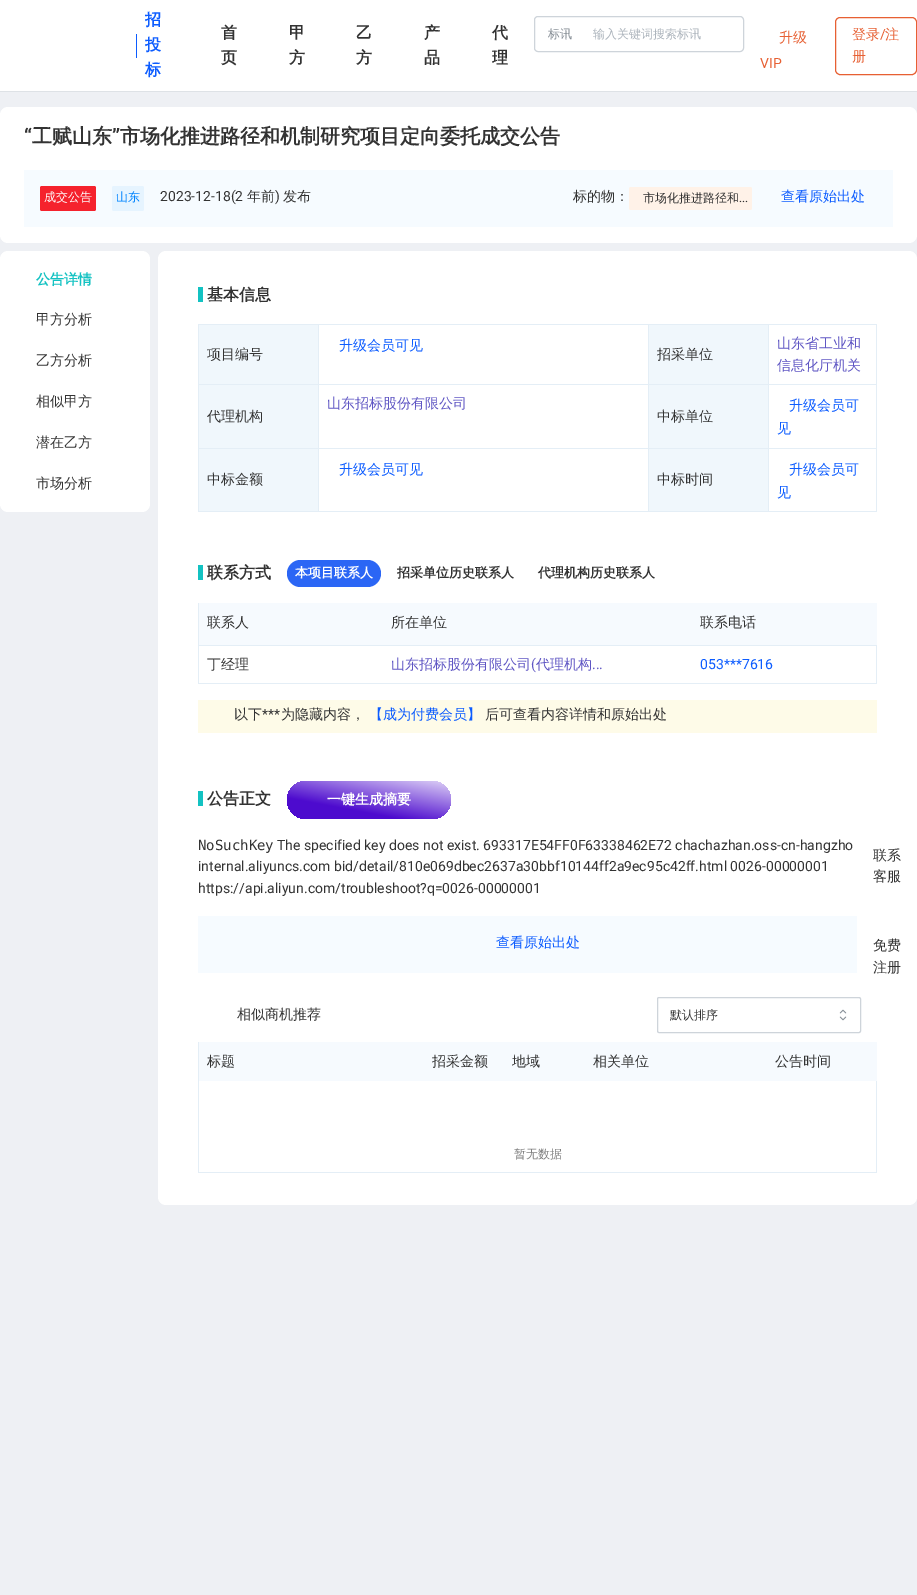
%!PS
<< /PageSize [917 1595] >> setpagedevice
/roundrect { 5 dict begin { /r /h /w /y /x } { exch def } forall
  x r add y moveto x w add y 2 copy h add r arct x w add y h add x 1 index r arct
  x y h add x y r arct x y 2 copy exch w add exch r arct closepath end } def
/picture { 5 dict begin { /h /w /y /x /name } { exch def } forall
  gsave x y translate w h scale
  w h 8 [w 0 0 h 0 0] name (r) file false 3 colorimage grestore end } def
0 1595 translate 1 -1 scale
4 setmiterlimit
0.933 0.941 0.957 setrgbcolor
0 0 917 1595 rectfill
1 setgray
0 0 917 91 rectfill
0.871 0.886 0.902 setrgbcolor
0 91 917 1 rectfill
0.047 0.361 1 setrgbcolor
136 34 1 24 rectfill
/WenQuanYiZenHei-Bold [16 0 0 -16 0 0] selectfont
145 25 moveto (招) show
145 50 moveto (投) show
145 75 moveto (标) show
0.2 setgray
221 38 moveto (首) show
221 63 moveto (页) show
289 38 moveto (甲) show
289 63 moveto (方) show
356 38 moveto (乙) show
356 63 moveto (方) show
424 38 moveto (产) show
424 63 moveto (品) show
492 38 moveto (代) show
492 63 moveto (理) show
0.808 0.831 0.855 setrgbcolor
534.5 16.5 209 35 3.5 roundrect stroke
/WenQuanYiZenHei-Medium [12 0 0 -12 0 0] selectfont
0.525 0.557 0.588 setrgbcolor
548 38 moveto (标讯) show
0.678 0.71 0.741 setrgbcolor
593 38 moveto (输入关键词搜索标讯) show
/WenQuanYiZenHei-Medium [14 0 0 -14 0 0] selectfont
0.906 0.376 0.2 setrgbcolor
779 42 moveto (升级) show
/Roboto-Regular [14 0 0 -14 0 0] selectfont
760 68 moveto (VIP) show
835.5 17.5 81 57 4.5 roundrect stroke
/WenQuanYiZenHei-Medium [14 0 0 -14 0 0] selectfont
852 39 moveto (登录) show
/Roboto-Regular [14 0 0 -14 0 0] selectfont
880 39 moveto (/) show
/WenQuanYiZenHei-Medium [14 0 0 -14 0 0] selectfont
885 39 moveto (注) show
852 61 moveto (册) show
1 setgray
0 107 917 136 8 roundrect fill
/Roboto-Bold [20 0 0 -20 0 0] selectfont
0.2 setgray
24 143 moveto (“) show
/WenQuanYiZenHei-Bold [20 0 0 -20 0 0] selectfont
32 143 moveto (工赋山东) show
/Roboto-Bold [20 0 0 -20 0 0] selectfont
112 143 moveto (”) show
/WenQuanYiZenHei-Bold [20 0 0 -20 0 0] selectfont
120 143 moveto (市场化推进路径和机制研究项目定向委托成交公告) show
0.965 0.984 1 setrgbcolor
24 170 869 57 rectfill
0.961 0.133 0.176 setrgbcolor
40 186 56 25 2 roundrect fill
/WenQuanYiZenHei-Medium [12 0 0 -12 0 0] selectfont
1 setgray
44 201 moveto (成交公告) show
0.902 0.957 1 setrgbcolor
112 186 32 25 2 roundrect fill
0 0.518 1 setrgbcolor
116 201 moveto (山东) show
/Roboto-Regular [14 0 0 -14 0 0] selectfont
0.2 setgray
160 201 moveto (2023-12-18\(2) show
/WenQuanYiZenHei-Medium [14 0 0 -14 0 0] selectfont
247 201 moveto (年前) show
/Roboto-Regular [14 0 0 -14 0 0] selectfont
275 201 moveto (\)) show
/WenQuanYiZenHei-Medium [14 0 0 -14 0 0] selectfont
283 201 moveto (发布) show
573 201 moveto (标的物：) show
1 0.949 0.91 setrgbcolor
629 187 123 23 2 roundrect fill
/WenQuanYiZenHei-Medium [12 0 0 -12 0 0] selectfont
0.2 setgray
643 202 moveto (市场化推进路径和) show
/Roboto-Regular [12 0 0 -12 0 0] selectfont
739 202 moveto (...) show
/WenQuanYiZenHei-Medium [14 0 0 -14 0 0] selectfont
0.047 0.361 1 setrgbcolor
781 201 moveto (查看原始出处) show
1 setgray
0 251 150 261 8 roundrect fill
/WenQuanYiZenHei-Bold [14 0 0 -14 0 0] selectfont
0.075 0.761 0.761 setrgbcolor
36 284 moveto (公告详情) show
/WenQuanYiZenHei-Medium [14 0 0 -14 0 0] selectfont
0.2 setgray
36 324 moveto (甲方分析) show
36 365 moveto (乙方分析) show
36 406 moveto (相似甲方) show
36 447 moveto (潜在乙方) show
36 488 moveto (市场分析) show
1 setgray
158 251 759 954 8 roundrect fill
0.075 0.761 0.761 setrgbcolor
198 287 5 15 rectfill
/WenQuanYiZenHei-Bold [16 0 0 -16 0 0] selectfont
0.2 setgray
207 300 moveto (基本信息) show
0.894 0.933 0.965 setrgbcolor
768 324 109 1 rectfill
768 384 109 1 rectfill
768 448 109 1 rectfill
876 448 1 64 rectfill
768 511 109 1 rectfill
768 448 1 64 rectfill
648 448 121 1 rectfill
768 384 1 65 rectfill
648 384 121 1 rectfill
768 324 1 61 rectfill
648 324 121 1 rectfill
648 511 121 1 rectfill
648 448 1 64 rectfill
318 448 331 1 rectfill
648 384 1 65 rectfill
318 384 331 1 rectfill
648 324 1 61 rectfill
318 324 331 1 rectfill
318 511 331 1 rectfill
318 448 1 64 rectfill
198 448 121 1 rectfill
318 384 1 65 rectfill
198 384 121 1 rectfill
318 324 1 61 rectfill
/WenQuanYiZenHei-Medium [14 0 0 -14 0 0] selectfont
0.047 0.361 1 setrgbcolor
339 350 moveto (升级会员可见) show
0.894 0.933 0.965 setrgbcolor
876 384 1 65 rectfill
876 324 1 61 rectfill
0.373 0.337 0.769 setrgbcolor
777 348 moveto (山东省工业和) show
777 370 moveto (信息化厅机关) show
0.941 0.969 0.988 setrgbcolor
199 325 119 59 rectfill
0.894 0.933 0.965 setrgbcolor
198 324 121 1 rectfill
198 511 121 1 rectfill
198 448 1 64 rectfill
198 384 1 65 rectfill
198 324 1 61 rectfill
0.2 setgray
207 359 moveto (项目编号) show
0.941 0.969 0.988 setrgbcolor
649 325 119 59 rectfill
0.2 setgray
657 359 moveto (招采单位) show
0.941 0.969 0.988 setrgbcolor
199 385 119 63 rectfill
0.2 setgray
207 421 moveto (代理机构) show
0.373 0.337 0.769 setrgbcolor
327 408 moveto (山东招标股份有限公司) show
0.941 0.969 0.988 setrgbcolor
649 385 119 63 rectfill
0.2 setgray
657 421 moveto (中标单位) show
0.047 0.361 1 setrgbcolor
789 410 moveto (升级会员可) show
777 433 moveto (见) show
0.941 0.969 0.988 setrgbcolor
199 449 119 62 rectfill
0.2 setgray
207 484 moveto (中标金额) show
0.047 0.361 1 setrgbcolor
339 474 moveto (升级会员可见) show
0.941 0.969 0.988 setrgbcolor
649 449 119 62 rectfill
0.2 setgray
657 484 moveto (中标时间) show
0.047 0.361 1 setrgbcolor
789 474 moveto (升级会员可) show
777 497 moveto (见) show
0.075 0.761 0.761 setrgbcolor
198 565 5 15 rectfill
/WenQuanYiZenHei-Bold [16 0 0 -16 0 0] selectfont
0.2 setgray
207 578 moveto (联系方式) show
0.169 0.4 0.961 setrgbcolor
287 560 94 27 13.5 roundrect fill
/WenQuanYiZenHei-Bold [13 0 0 -13 0 0] selectfont
1 setgray
295 577 moveto (本项目联系人) show
0.2 setgray
397 577 moveto (招采单位历史联系人) show
538 577 moveto (代理机构历史联系人) show
0.894 0.933 0.965 setrgbcolor
876 646 1 38 rectfill
198 603 1 81 rectfill
0.965 0.98 0.996 setrgbcolor
199 603 678 42 rectfill
/WenQuanYiZenHei-Medium [14 0 0 -14 0 0] selectfont
0.2 setgray
207 627 moveto (联系人) show
391 627 moveto (所在单位) show
700 627 moveto (联系电话) show
207 669 moveto (丁经理) show
0.373 0.337 0.769 setrgbcolor
391 669 moveto (山东招标股份有限公司) show
/Roboto-Regular [14 0 0 -14 0 0] selectfont
531 669 moveto (\() show
/WenQuanYiZenHei-Medium [14 0 0 -14 0 0] selectfont
536 669 moveto (代理机构) show
/Roboto-Regular [14 0 0 -14 0 0] selectfont
592 669 moveto (...) show
0.894 0.933 0.965 setrgbcolor
198 645 679 1 rectfill
198 683 679 1 rectfill
0.047 0.361 1 setrgbcolor
700 669 moveto (053***7616) show
0.996 0.984 0.91 setrgbcolor
198 700 679 33 rectfill
/WenQuanYiZenHei-Medium [14 0 0 -14 0 0] selectfont
0.2 setgray
234 719 moveto (以下) show
/Roboto-Regular [14 0 0 -14 0 0] selectfont
262 719 moveto (***) show
/WenQuanYiZenHei-Medium [14 0 0 -14 0 0] selectfont
281 719 moveto (为隐藏内容，) show
0.047 0.361 1 setrgbcolor
369 719 moveto (【成为付费会员】) show
0.2 setgray
485 719 moveto (后可查看内容详情和原始出处) show
0.075 0.761 0.761 setrgbcolor
198 791 5 15 rectfill
/WenQuanYiZenHei-Bold [16 0 0 -16 0 0] selectfont
0.2 setgray
207 804 moveto (公告正文) show
gsave 287 781 164 38 19 roundrect clip newpath
<< /ShadingType 2 /ColorSpace /DeviceRGB /Coords [363 832 375 768] /Extend [true true] /Function << /FunctionType 3 /Domain [0 1] /Functions [<< /FunctionType 2 /Domain [0 1] /C0 [0.302 0.043 0.808] /C1 [0.302 0.043 0.808] /N 1 >> << /FunctionType 2 /Domain [0 1] /C0 [0.302 0.043 0.808] /C1 [0.855 0.8 0.961] /N 1 >>] /Bounds [0.3] /Encode [0 1 0 1] >> >> shfill grestore
/WenQuanYiZenHei-Bold [14 0 0 -14 0 0] selectfont
1 setgray
327 804 moveto (一键生成摘要) show
/DejaVuSansMono-Regular [14 0 0 -14 0 0] selectfont
0.2 setgray
198 850 moveto (NoSuchKey) show
/Roboto-Regular [14 0 0 -14 0 0] selectfont
277 850 moveto (The specified key does not exist. 693317E54FF0F63338462E72 chachazhan.oss-cn-hangzho) show
198 871 moveto (internal.aliyuncs.com bid/detail/810e069dbec2637a30bbf10144ff2a9ec95c42ff.html 0026-00000001) show
198 893 moveto (https://api.aliyun.com/troubleshoot?q=0026-00000001) show
0.965 0.984 1 setrgbcolor
198 916 659 57 rectfill
/WenQuanYiZenHei-Medium [14 0 0 -14 0 0] selectfont
0.047 0.361 1 setrgbcolor
496 947 moveto (查看原始出处) show
0.2 setgray
237 1019 moveto (相似商机推荐) show
0.808 0.831 0.855 setrgbcolor
657.5 997.5 203 35 1.5 roundrect stroke
/WenQuanYiZenHei-Medium [12 0 0 -12 0 0] selectfont
0.2 setgray
670 1019 moveto (默认排序) show
(img1.rgb) 839 1009 8 12 picture
0.894 0.933 0.965 setrgbcolor
876 1081 1 92 rectfill
198 1042 1 131 rectfill
0.965 0.98 0.996 setrgbcolor
199 1042 678 39 rectfill
/WenQuanYiZenHei-Medium [14 0 0 -14 0 0] selectfont
0.2 setgray
207 1066 moveto (标题) show
432 1066 moveto (招采金额) show
512 1066 moveto (地域) show
593 1066 moveto (相关单位) show
775 1066 moveto (公告时间) show
0.894 0.933 0.965 setrgbcolor
198 1172 679 1 rectfill
/WenQuanYiZenHei-Medium [12 0 0 -12 0 0] selectfont
0.502 setgray
514 1158 moveto (暂无数据) show
/WenQuanYiZenHei-Medium [14 0 0 -14 0 0] selectfont
0.2 setgray
873 860 moveto (联系) show
873 881 moveto (客服) show
873 950 moveto (免费) show
873 972 moveto (注册) show
showpage
